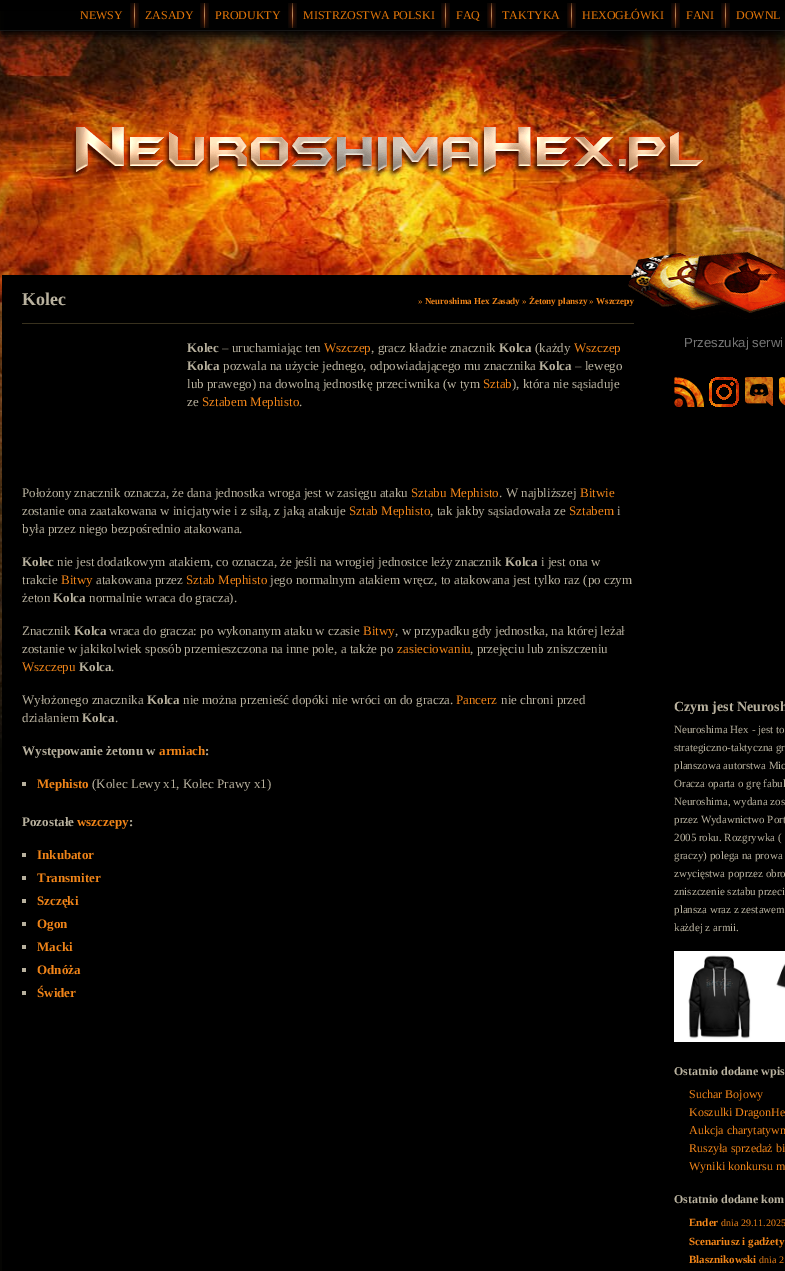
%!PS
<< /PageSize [785 1271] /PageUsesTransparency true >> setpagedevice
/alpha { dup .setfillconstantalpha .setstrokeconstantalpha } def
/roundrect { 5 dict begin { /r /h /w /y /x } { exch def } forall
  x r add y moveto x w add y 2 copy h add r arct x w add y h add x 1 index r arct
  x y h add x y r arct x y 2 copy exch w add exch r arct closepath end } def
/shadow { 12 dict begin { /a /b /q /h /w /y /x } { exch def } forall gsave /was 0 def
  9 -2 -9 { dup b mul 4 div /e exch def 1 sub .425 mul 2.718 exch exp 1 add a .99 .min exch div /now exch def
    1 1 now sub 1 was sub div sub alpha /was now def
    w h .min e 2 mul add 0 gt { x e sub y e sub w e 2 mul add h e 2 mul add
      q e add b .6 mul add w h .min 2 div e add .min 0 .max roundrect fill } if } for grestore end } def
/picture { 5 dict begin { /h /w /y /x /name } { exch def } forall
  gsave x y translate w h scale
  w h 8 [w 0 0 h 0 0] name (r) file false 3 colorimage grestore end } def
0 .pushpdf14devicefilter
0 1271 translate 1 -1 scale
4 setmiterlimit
0.02 0.02 0.012 setrgbcolor
0 0 785 1271 rectfill
(img1.rgb) 0 31 785 929 picture
0 setgray
0 5 785 31 0 5 1 shadow
0 0 785 11 rectfill
0.086 setgray
0 30 785 1 rectfill
(img2.rgb) 130 3 9 25 picture
/LiberationSerif-Regular [12 0 0 -12 0 0] selectfont
0.878 0.455 0.031 setrgbcolor
80 19 moveto (NEWSY) show
(img2.rgb) 200 3 9 25 picture
145 19 moveto (ZASADY) show
(img2.rgb) 288 3 9 25 picture
215 19 moveto (PRODUKTY) show
(img2.rgb) 441 3 9 25 picture
303 19 moveto (MISTRZOSTWA POLSKI) show
(img2.rgb) 487 3 9 25 picture
456 19 moveto (FAQ) show
(img2.rgb) 567 3 9 25 picture
502 19 moveto (TAKTYKA) show
(img2.rgb) 671 3 9 25 picture
582 19 moveto (HEXOGŁÓWKI) show
(img2.rgb) 721 3 9 25 picture
686 19 moveto (FANI) show
736 19 moveto (DOWNL) show
(img3.rgb) 70 121 636 58 picture
0 setgray
2 275 783 996 rectfill
/LiberationSerif-Bold [9 0 0 -9 0 0] selectfont
0.941 0.518 0.094 setrgbcolor
596 304 moveto (Wszczepy) show
(img4.rgb) 628 251 157 68 picture
0.22 0.192 0.118 setrgbcolor
22 323 612 1 rectfill
/LiberationSerif-Bold [18 0 0 -18 0 0] selectfont
0.722 0.694 0.62 setrgbcolor
22 305 moveto (Kolec) show
/LiberationSerif-Regular [9 0 0 -9 0 0] selectfont
0.941 0.518 0.094 setrgbcolor
418 304 moveto (») show
/LiberationSerif-Bold [9 0 0 -9 0 0] selectfont
425 304 moveto (Neuroshima Hex Zasady) show
/LiberationSerif-Regular [9 0 0 -9 0 0] selectfont
522 304 moveto (») show
/LiberationSerif-Bold [9 0 0 -9 0 0] selectfont
529 304 moveto (Żetony planszy) show
/LiberationSerif-Regular [9 0 0 -9 0 0] selectfont
589 304 moveto (») show
/LiberationSerif-Bold [13 0 0 -13 0 0] selectfont
0.722 0.694 0.62 setrgbcolor
187 352 moveto (Kolec) show
/LiberationSerif-Regular [13 0 0 -13 0 0] selectfont
222 352 moveto (– uruchamiając ten) show
0.941 0.518 0.094 setrgbcolor
324 352 moveto (Wszczep) show
0.722 0.694 0.62 setrgbcolor
371 352 moveto (, gracz kładzie znacznik) show
/LiberationSerif-Bold [13 0 0 -13 0 0] selectfont
499 352 moveto (Kolca) show
/LiberationSerif-Regular [13 0 0 -13 0 0] selectfont
535 352 moveto (\(każdy) show
0.941 0.518 0.094 setrgbcolor
574 352 moveto (Wszczep) show
/LiberationSerif-Bold [13 0 0 -13 0 0] selectfont
0.722 0.694 0.62 setrgbcolor
187 370 moveto (Kolca) show
/LiberationSerif-Regular [13 0 0 -13 0 0] selectfont
223 370 moveto (pozwala na użycie jednego, odpowiadającego mu znacznika) show
/LiberationSerif-Bold [13 0 0 -13 0 0] selectfont
539 370 moveto (Kolca) show
/LiberationSerif-Regular [13 0 0 -13 0 0] selectfont
575 370 moveto (– lewego) show
187 388 moveto (lub prawego\) na dowolną jednostkę przeciwnika \(w tym) show
0.941 0.518 0.094 setrgbcolor
483 388 moveto (Sztab) show
0.722 0.694 0.62 setrgbcolor
512 388 moveto (\), która nie sąsiaduje) show
187 406 moveto (ze) show
0.941 0.518 0.094 setrgbcolor
202 406 moveto (Sztabem Mephisto) show
0.722 0.694 0.62 setrgbcolor
299 406 moveto (.) show
22 497 moveto (Położony znacznik oznacza, że dana jednostka wroga jest w zasięgu ataku) show
0.941 0.518 0.094 setrgbcolor
411 497 moveto (Sztabu Mephisto) show
0.722 0.694 0.62 setrgbcolor
499 497 moveto (. W najbliższej) show
0.941 0.518 0.094 setrgbcolor
580 497 moveto (Bitwie) show
0.722 0.694 0.62 setrgbcolor
22 515 moveto (zostanie ona zaatakowana w inicjatywie i z siłą, z jaką atakuje) show
0.941 0.518 0.094 setrgbcolor
349 515 moveto (Sztab Mephisto) show
0.722 0.694 0.62 setrgbcolor
430 515 moveto (, tak jakby sąsiadowała ze) show
0.941 0.518 0.094 setrgbcolor
569 515 moveto (Sztabem) show
0.722 0.694 0.62 setrgbcolor
617 515 moveto (i) show
22 533 moveto (była przez niego bezpośrednio atakowana.) show
/LiberationSerif-Bold [13 0 0 -13 0 0] selectfont
22 566 moveto (Kolec) show
/LiberationSerif-Regular [13 0 0 -13 0 0] selectfont
57 566 moveto (nie jest dodatkowym atakiem, co oznacza, że jeśli na wrogiej jednostce leży znacznik) show
/LiberationSerif-Bold [13 0 0 -13 0 0] selectfont
505 566 moveto (Kolca) show
/LiberationSerif-Regular [13 0 0 -13 0 0] selectfont
541 566 moveto (i jest ona w) show
22 584 moveto (trakcie) show
0.941 0.518 0.094 setrgbcolor
61 584 moveto (Bitwy) show
0.722 0.694 0.62 setrgbcolor
96 584 moveto (atakowana przez) show
0.941 0.518 0.094 setrgbcolor
186 584 moveto (Sztab Mephisto) show
0.722 0.694 0.62 setrgbcolor
270 584 moveto (jego normalnym atakiem wręcz, to atakowana jest tylko raz \(po czym) show
22 602 moveto (żeton) show
/LiberationSerif-Bold [13 0 0 -13 0 0] selectfont
53 602 moveto (Kolca) show
/LiberationSerif-Regular [13 0 0 -13 0 0] selectfont
89 602 moveto (normalnie wraca do gracza\).) show
22 635 moveto (Znacznik) show
/LiberationSerif-Bold [13 0 0 -13 0 0] selectfont
74 635 moveto (Kolca) show
/LiberationSerif-Regular [13 0 0 -13 0 0] selectfont
109 635 moveto (wraca do gracza: po wykonanym ataku w czasie) show
0.941 0.518 0.094 setrgbcolor
363 635 moveto (Bitwy) show
0.722 0.694 0.62 setrgbcolor
395 635 moveto (, w przypadku gdy jednostka, na której leżał) show
22 653 moveto (zostanie w jakikolwiek sposób przemieszczona na inne pole, a także po) show
0.941 0.518 0.094 setrgbcolor
397 653 moveto (zasieciowaniu) show
0.722 0.694 0.62 setrgbcolor
470 653 moveto (, przejęciu lub zniszczeniu) show
0.941 0.518 0.094 setrgbcolor
22 671 moveto (Wszczepu) show
/LiberationSerif-Bold [13 0 0 -13 0 0] selectfont
0.722 0.694 0.62 setrgbcolor
79 671 moveto (Kolca) show
/LiberationSerif-Regular [13 0 0 -13 0 0] selectfont
111 671 moveto (.) show
22 704 moveto (Wyłożonego znacznika) show
/LiberationSerif-Bold [13 0 0 -13 0 0] selectfont
147 704 moveto (Kolca) show
/LiberationSerif-Regular [13 0 0 -13 0 0] selectfont
183 704 moveto (nie można przenieść dopóki nie wróci on do gracza.) show
0.941 0.518 0.094 setrgbcolor
456 704 moveto (Pancerz) show
0.722 0.694 0.62 setrgbcolor
501 704 moveto (nie chroni przed) show
22 722 moveto (działaniem) show
/LiberationSerif-Bold [13 0 0 -13 0 0] selectfont
82 722 moveto (Kolca) show
/LiberationSerif-Regular [13 0 0 -13 0 0] selectfont
115 722 moveto (.) show
/LiberationSerif-Bold [13 0 0 -13 0 0] selectfont
22 755 moveto (Występowanie żetonu w) show
0.941 0.518 0.094 setrgbcolor
159 755 moveto (armiach) show
0.722 0.694 0.62 setrgbcolor
205 755 moveto (:) show
22 782 4 4 rectfill
0.941 0.518 0.094 setrgbcolor
37 788 moveto (Mephisto) show
/LiberationSerif-Regular [13 0 0 -13 0 0] selectfont
0.722 0.694 0.62 setrgbcolor
92 788 moveto (\(Kolec Lewy x1, Kolec Prawy x1\)) show
/LiberationSerif-Bold [13 0 0 -13 0 0] selectfont
22 826 moveto (Pozostałe) show
0.941 0.518 0.094 setrgbcolor
77 826 moveto (wszczepy) show
0.722 0.694 0.62 setrgbcolor
129 826 moveto (:) show
22 853 4 4 rectfill
0.941 0.518 0.094 setrgbcolor
37 859 moveto (Inkubator) show
0.722 0.694 0.62 setrgbcolor
22 876 4 4 rectfill
0.941 0.518 0.094 setrgbcolor
37 882 moveto (Transmiter) show
0.722 0.694 0.62 setrgbcolor
22 899 4 4 rectfill
0.941 0.518 0.094 setrgbcolor
37 905 moveto (Szczęki) show
0.722 0.694 0.62 setrgbcolor
22 922 4 4 rectfill
0.941 0.518 0.094 setrgbcolor
37 928 moveto (Ogon) show
0.722 0.694 0.62 setrgbcolor
22 945 4 4 rectfill
0.941 0.518 0.094 setrgbcolor
37 951 moveto (Macki) show
0.722 0.694 0.62 setrgbcolor
22 968 4 4 rectfill
0.941 0.518 0.094 setrgbcolor
37 974 moveto (Odnóża) show
0.722 0.694 0.62 setrgbcolor
22 991 4 4 rectfill
0.941 0.518 0.094 setrgbcolor
37 997 moveto (Świder) show
/LiberationSans-Regular [13.25 0 0 -13.25 0 0] selectfont
0.459 setgray
684 347 moveto (Przeszukaj serwi) show
(img5.rgb) 674 377 30 30 picture
(img6.rgb) 709 377 30 30 picture
(img7.rgb) 745 377 28 29 picture
(img8.rgb) 779 377 6 29 picture
/LiberationSerif-Bold [14 0 0 -14 0 0] selectfont
0.722 0.694 0.62 setrgbcolor
674 711 moveto (Czym jest Neurosh) show
/LiberationSerif-Regular [11 0 0 -11 0 0] selectfont
674 733 moveto (Neuroshima Hex - jest to) show
674 751 moveto (strategiczno-taktyczna gr) show
674 769 moveto (planszowa autorstwa Mic) show
674 787 moveto (Oracza oparta o grę fabul) show
674 805 moveto (Neuroshima, wydana zos) show
674 823 moveto (przez Wydawnictwo Port) show
674 841 moveto (2005 roku. Rozgrywka \() show
674 859 moveto (graczy\) polega na prowa) show
674 877 moveto (zwycięstwa poprzez obro) show
674 895 moveto (zniszczenie sztabu przeci) show
674 913 moveto (plansza wraz z zestawem) show
674 931 moveto (każdej z armii.) show
(img9.rgb) 674 951 111 91 picture
/LiberationSerif-Bold [12 0 0 -12 0 0] selectfont
674 1075 moveto (Ostatnio dodane wpis) show
/LiberationSerif-Regular [12 0 0 -12 0 0] selectfont
0.941 0.518 0.094 setrgbcolor
689 1098 moveto (Suchar Bojowy) show
689 1116 moveto (Koszulki DragonHe) show
689 1134 moveto (Aukcja charytatywn) show
689 1152 moveto (Ruszyła sprzedaż bi) show
689 1170 moveto (Wyniki konkursu m) show
/LiberationSerif-Bold [12 0 0 -12 0 0] selectfont
0.722 0.694 0.62 setrgbcolor
674 1203 moveto (Ostatnio dodane kom) show
/LiberationSerif-Bold [11 0 0 -11 0 0] selectfont
0.941 0.518 0.094 setrgbcolor
689 1226 moveto (Ender) show
/LiberationSerif-Regular [10 0 0 -10 0 0] selectfont
721 1226 moveto (dnia 29.11.2025) show
/LiberationSerif-Bold [11 0 0 -11 0 0] selectfont
689 1245 moveto (Scenariusz i gadżety) show
689 1263 moveto (Blasznikowski) show
/LiberationSerif-Regular [10 0 0 -10 0 0] selectfont
759 1263 moveto (dnia 2) show
.poppdf14devicefilter showpage
